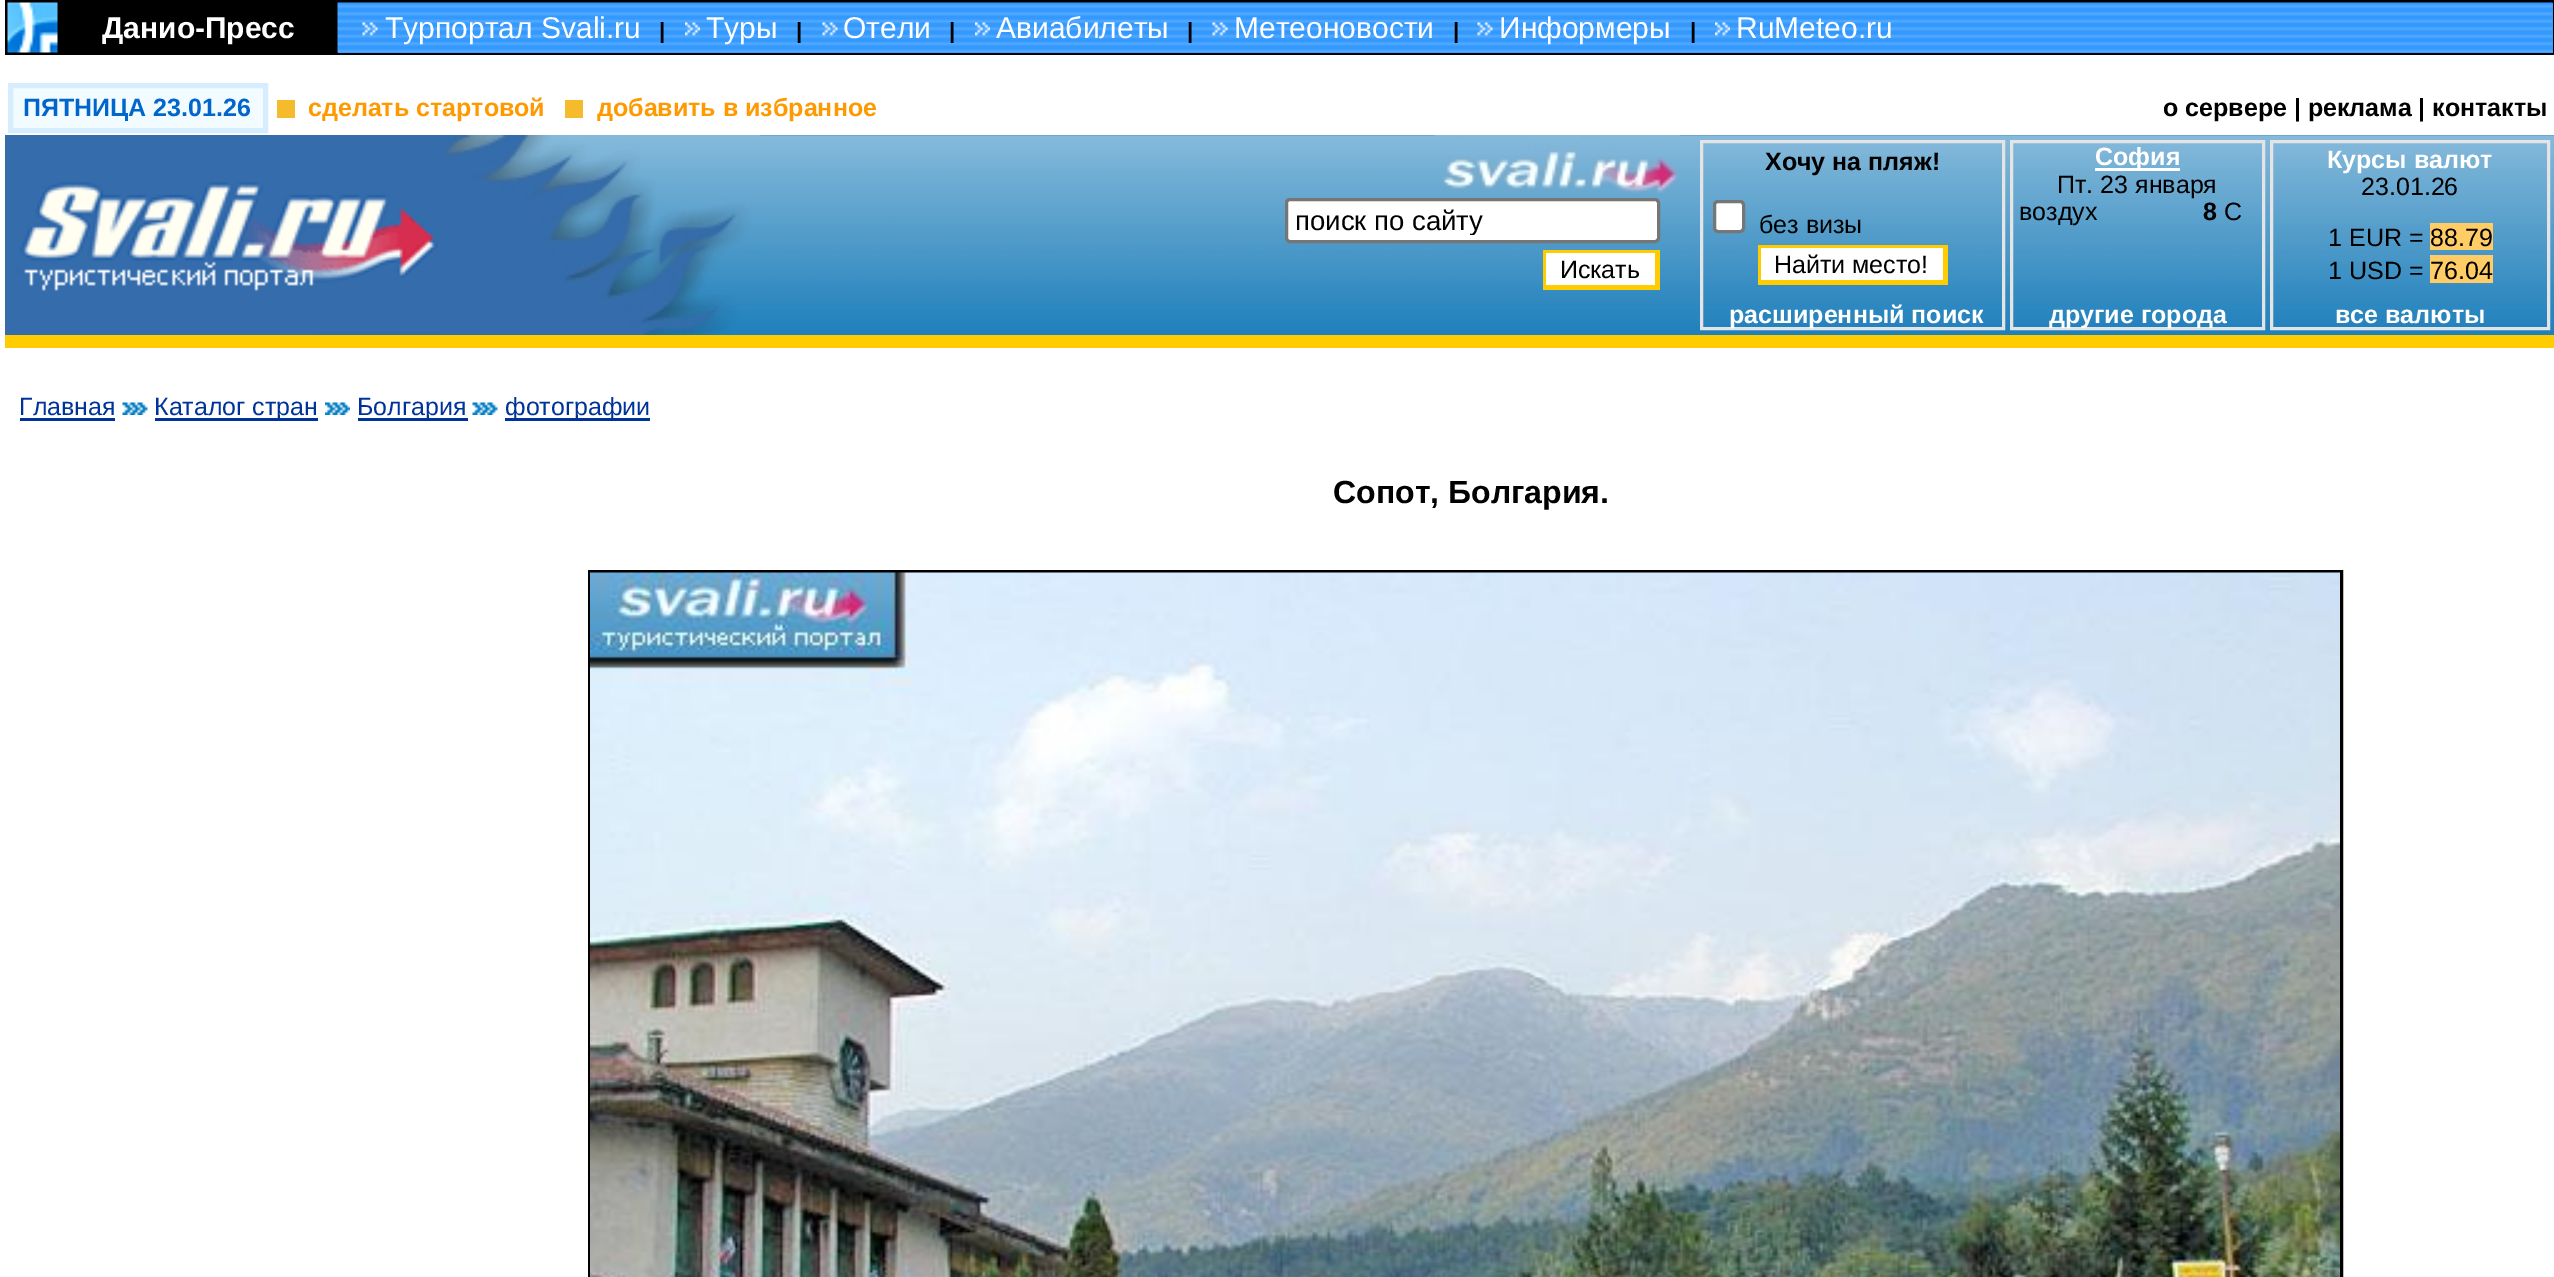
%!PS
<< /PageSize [2554 1277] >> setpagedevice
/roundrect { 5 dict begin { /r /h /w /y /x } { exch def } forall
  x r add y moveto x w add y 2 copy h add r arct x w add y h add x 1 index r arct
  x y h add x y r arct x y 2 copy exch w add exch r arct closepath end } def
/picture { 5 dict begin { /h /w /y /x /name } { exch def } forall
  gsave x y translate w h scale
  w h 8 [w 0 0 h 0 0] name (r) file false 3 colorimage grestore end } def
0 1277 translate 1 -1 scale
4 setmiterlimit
1 setgray
0 0 2554 1277 rectfill
0 setgray
5 0 2549 55 rectfill
(img1.rgb) 7 2 51 51 picture
/LiberationSans-Bold [30 0 0 -30 0 0] selectfont
1 setgray
102 38 moveto (Данио-Пресс) show
0.2 0.6 1 setrgbcolor
338 3 2215 50 rectfill
(img2.rgb) 337 2 2216 51 picture
(img3.rgb) 362 22 16 14 picture
/LiberationSans-Regular [30 0 0 -30 0 0] selectfont
1 setgray
385 38 moveto (Турпортал Svali.ru) show
/LiberationSans-Bold [22 0 0 -22 0 0] selectfont
0 setgray
659 38 moveto (|) show
(img4.rgb) 685 22 15 14 picture
/LiberationSans-Regular [30 0 0 -30 0 0] selectfont
1 setgray
706 38 moveto (Туры) show
/LiberationSans-Bold [22 0 0 -22 0 0] selectfont
0 setgray
796 38 moveto (|) show
(img3.rgb) 822 22 16 14 picture
/LiberationSans-Regular [30 0 0 -30 0 0] selectfont
1 setgray
843 38 moveto (Отели) show
/LiberationSans-Bold [22 0 0 -22 0 0] selectfont
0 setgray
949 38 moveto (|) show
(img4.rgb) 975 22 15 14 picture
/LiberationSans-Regular [30 0 0 -30 0 0] selectfont
1 setgray
996 38 moveto (Авиабилеты) show
/LiberationSans-Bold [22 0 0 -22 0 0] selectfont
0 setgray
1187 38 moveto (|) show
(img5.rgb) 1212 22 16 14 picture
/LiberationSans-Regular [30 0 0 -30 0 0] selectfont
1 setgray
1234 38 moveto (Метеоновости) show
/LiberationSans-Bold [22 0 0 -22 0 0] selectfont
0 setgray
1453 38 moveto (|) show
(img5.rgb) 1477 22 16 14 picture
/LiberationSans-Regular [30 0 0 -30 0 0] selectfont
1 setgray
1499 38 moveto (Информеры) show
/LiberationSans-Bold [22 0 0 -22 0 0] selectfont
0 setgray
1690 38 moveto (|) show
(img4.rgb) 1715 22 15 14 picture
/LiberationSans-Regular [30 0 0 -30 0 0] selectfont
1 setgray
1736 38 moveto (RuMeteo.ru) show
0.949 0.984 1 setrgbcolor
newpath 10.5 85.5 moveto 265.5 85.5 lineto 265.5 130.5 lineto 10.5 130.5 lineto closepath gsave fill grestore
0.835 0.929 0.992 setrgbcolor
5 setlinewidth
stroke
/LiberationSans-Bold [25 0 0 -25 0 0] selectfont
0 0.4 0.8 setrgbcolor
23 116 moveto (ПЯТНИЦА 23.01.26) show
1 0.6 0 setrgbcolor
308 116 moveto (сделать стартовой) show
0.965 0.733 0.173 setrgbcolor
277 100 18 18 rectfill
1 0.6 0 setrgbcolor
597 116 moveto (добавить в избранное) show
0.965 0.733 0.173 setrgbcolor
565 100 18 18 rectfill
0 setgray
2163 116 moveto (о сервере | реклама | контакты) show
(img6.rgb) 760 135 1794 200 picture
(img7.rgb) 5 135 435 200 picture
(img8.rgb) 440 135 320 200 picture
(img9.rgb) 1435 135 245 58 picture
1 setgray
1286.5 199.5 372 42 3.5 roundrect gsave fill grestore
0.463 setgray
3 setlinewidth
stroke
gsave
1295 205 355 30 rectclip
/LiberationSans-Regular [27.5 0 0 -27.5 0 0] selectfont
0 setgray
1295 230 moveto (поиск по сайту) show
grestore
1 setgray
1546 253 109 32 rectfill
1 0.8 0 setrgbcolor
1543 250 117 3 rectfill
1655 250 5 40 rectfill
1543 285 117 5 rectfill
1543 250 3 40 rectfill
/LiberationSans-Regular [25 0 0 -25 0 0] selectfont
0 setgray
1560 278 moveto (Искать) show
0.894 setgray
1701.5 141.5 302 187 rectstroke
/LiberationSans-Bold [25 0 0 -25 0 0] selectfont
0 setgray
1765 170 moveto (Хочу на пляж!) show
1 setgray
1714.5 201.5 29 30 3.5 roundrect gsave fill grestore
0.463 setgray
stroke
/LiberationSans-Regular [25 0 0 -25 0 0] selectfont
0 setgray
1759 233 moveto (без визы) show
1 setgray
1761 248 182 32 rectfill
1 0.8 0 setrgbcolor
1758 245 190 3 rectfill
1943 245 5 40 rectfill
1758 280 190 5 rectfill
1758 245 3 40 rectfill
0 setgray
1774 273 moveto (Найти место!) show
/LiberationSans-Bold [25 0 0 -25 0 0] selectfont
1 setgray
1729 323 moveto (расширенный поиск) show
0.894 setgray
2011.5 141.5 252 187 rectstroke
1 setgray
2095 168 85 3 rectfill
2095 165 moveto (София) show
/LiberationSans-Regular [25 0 0 -25 0 0] selectfont
0 setgray
2057 193 moveto (Пт. 23 января) show
2019 220 moveto (воздух) show
/LiberationSans-Bold [25 0 0 -25 0 0] selectfont
2203 220 moveto (8) show
/LiberationSans-Regular [25 0 0 -25 0 0] selectfont
2224 220 moveto (C) show
/LiberationSans-Bold [25 0 0 -25 0 0] selectfont
1 setgray
2049 323 moveto (другие города) show
0.894 setgray
2271.5 141.5 277 187 rectstroke
1 setgray
2327 168 moveto (Курсы валют) show
/LiberationSans-Regular [25 0 0 -25 0 0] selectfont
0 setgray
2361 195 moveto (23.01.26) show
2328 246 moveto (1 EUR =) show
1 0.8 0.4 setrgbcolor
2430 223 63 27 rectfill
0 setgray
2430 246 moveto (88.79) show
2328 279 moveto (1 USD =) show
1 0.8 0.4 setrgbcolor
2430 255 63 28 rectfill
0 setgray
2430 279 moveto (76.04) show
/LiberationSans-Bold [25 0 0 -25 0 0] selectfont
1 setgray
2335 323 moveto (все валюты) show
1 0.8 0 setrgbcolor
5 335 2549 13 rectfill
/LiberationSans-Regular [25 0 0 -25 0 0] selectfont
0 0.2 0.6 setrgbcolor
19 415 moveto (Главная) show
20 418 95 3 rectfill
(img10.rgb) 122 402 26 13 picture
155 418 163 3 rectfill
154 415 moveto (Каталог стран) show
(img11.rgb) 325 402 25 13 picture
358 418 110 3 rectfill
357 415 moveto (Болгария) show
(img10.rgb) 472 402 26 13 picture
505 418 145 3 rectfill
505 415 moveto (фотографии) show
/LiberationSans-Bold [32 0 0 -32 0 0] selectfont
0 setgray
1333 503 moveto (Сопот, Болгария.) show
589.5 571.5 1752 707 rectstroke
(img12.rgb) 590 572 1750 705 picture
showpage
